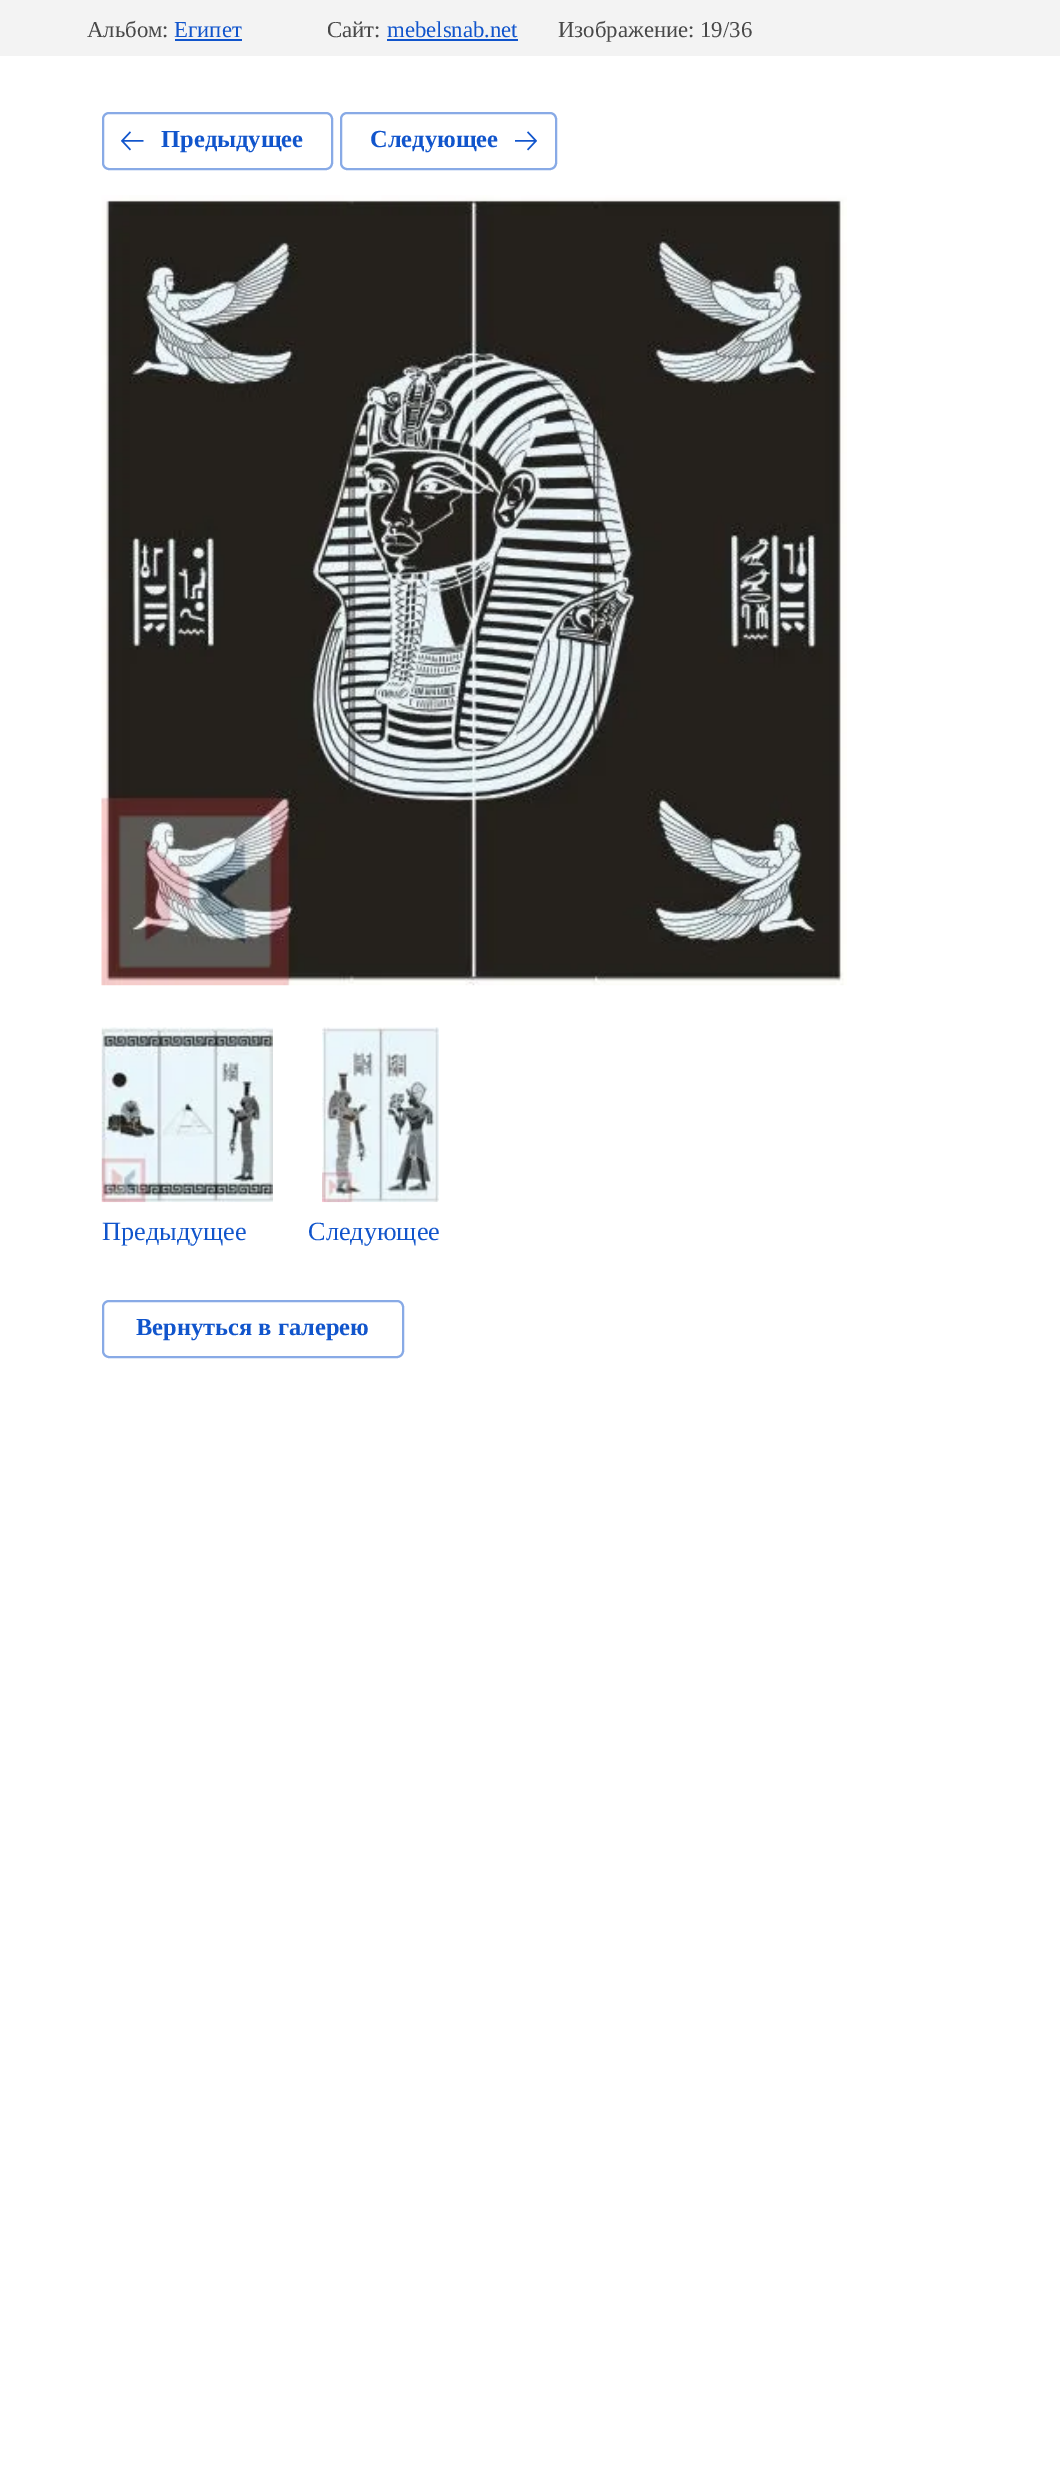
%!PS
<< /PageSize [1060 2477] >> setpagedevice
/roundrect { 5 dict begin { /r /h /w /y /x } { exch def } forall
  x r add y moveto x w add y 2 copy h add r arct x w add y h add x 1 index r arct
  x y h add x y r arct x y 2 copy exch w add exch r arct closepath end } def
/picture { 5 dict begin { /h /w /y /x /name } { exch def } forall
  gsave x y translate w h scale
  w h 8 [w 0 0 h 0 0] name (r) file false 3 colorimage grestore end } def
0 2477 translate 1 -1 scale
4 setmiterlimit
1 setgray
0 0 1060 2477 rectfill
0.953 setgray
0 0 1060 56 rectfill
/LiberationSerif-Regular [22.75 0 0 -22.75 0 0] selectfont
0.282 setgray
87 37 moveto (Альбом:) show
0.067 0.333 0.8 setrgbcolor
174 37 moveto (Египет) show
175 39 67 2 rectfill
0.282 setgray
327 37 moveto (Сайт:) show
0.067 0.333 0.8 setrgbcolor
387 37 moveto (mebelsnab.net) show
387 39 131 2 rectfill
0.282 setgray
558 37 moveto (Изображение: 19/36) show
0.533 0.667 0.902 setrgbcolor
2 setlinewidth
103 113 229 56 6 roundrect stroke
(img1.rgb) 121 131 23 20 picture
/LiberationSerif-Bold [24.5 0 0 -24.5 0 0] selectfont
0.067 0.333 0.8 setrgbcolor
161 147 moveto (Предыдущее) show
0.533 0.667 0.902 setrgbcolor
341 113 215 56 6 roundrect stroke
0.067 0.333 0.8 setrgbcolor
370 147 moveto (Следующее) show
(img2.rgb) 515 131 22 20 picture
(img3.rgb) 101 195 746 791 picture
(img4.rgb) 101 1027 172 176 picture
/LiberationSerif-Regular [26.25 0 0 -26.25 0 0] selectfont
102 1240 moveto (Предыдущее) show
(img5.rgb) 322 1027 117 176 picture
308 1240 moveto (Следующее) show
0.533 0.667 0.902 setrgbcolor
103 1301 300 56 6 roundrect stroke
/LiberationSerif-Bold [24.5 0 0 -24.5 0 0] selectfont
0.067 0.333 0.8 setrgbcolor
136 1335 moveto (Вернуться в галерею) show
showpage
